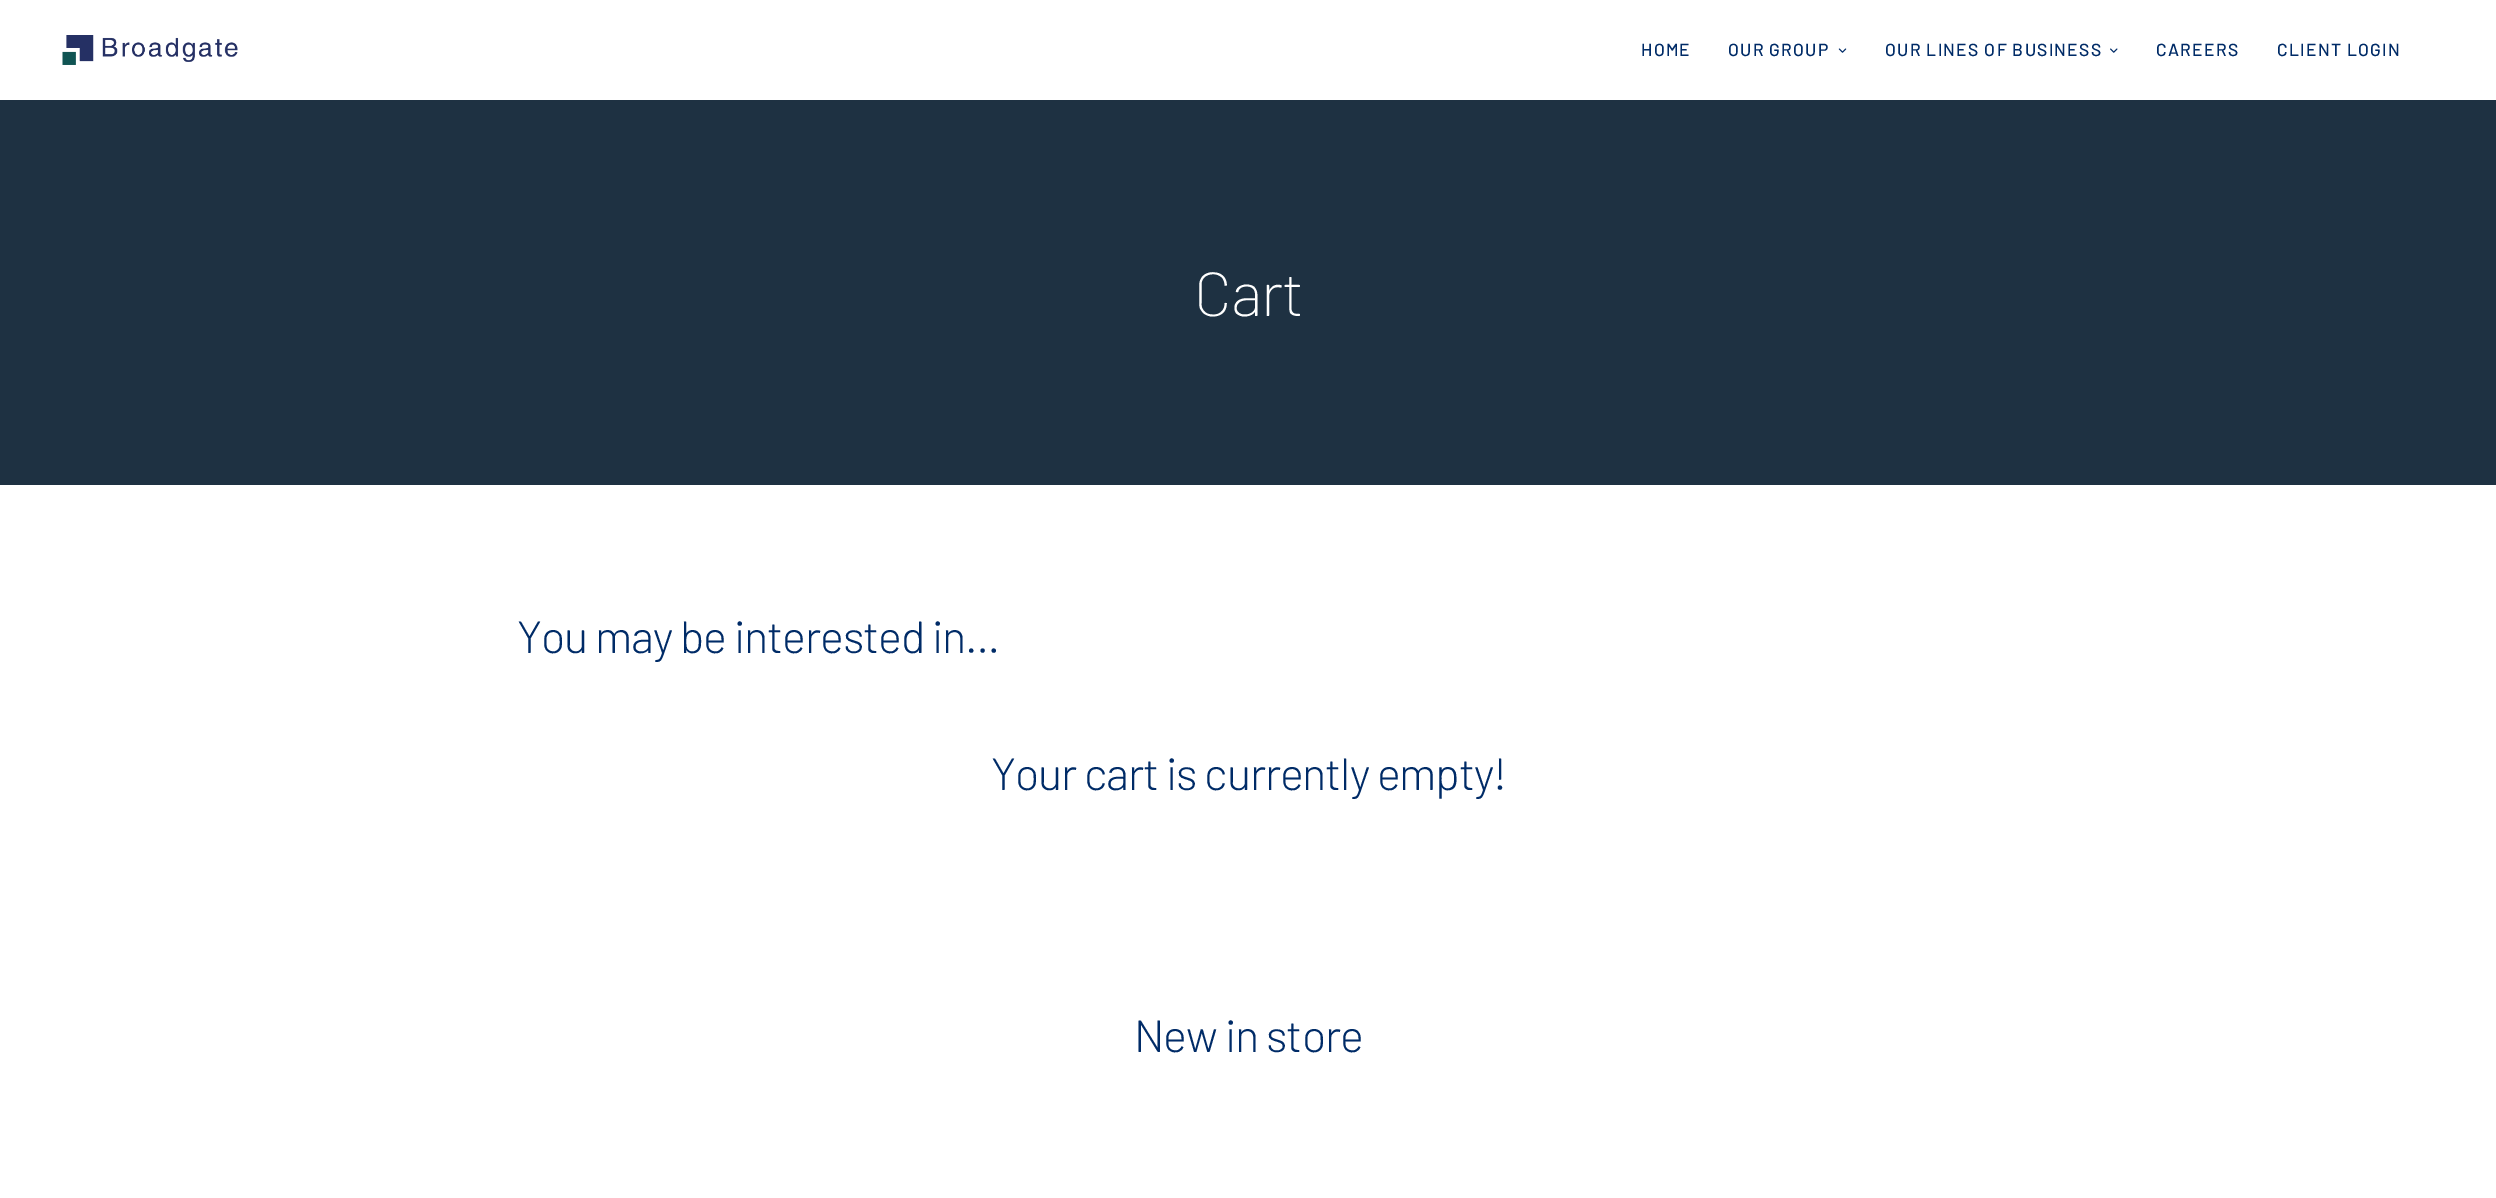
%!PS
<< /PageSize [2496 1198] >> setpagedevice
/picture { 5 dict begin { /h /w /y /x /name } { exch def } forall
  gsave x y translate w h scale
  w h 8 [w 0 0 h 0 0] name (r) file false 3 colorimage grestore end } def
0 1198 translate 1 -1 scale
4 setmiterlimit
1 setgray
0 0 2496 1198 rectfill
(img1.rgb) 62 35 176 30 picture
/Barlow-Medium [17.5 0 0 -17.5 0 0] selectfont
0 0.169 0.404 setrgbcolor
1641 56 moveto 1.25 0 (HOME) ashow
1728 56 moveto 1.25 0 (OUR GROUP) ashow
(img2.rgb) 1838 48 9 5 picture
1885 56 moveto 1.25 0 (OUR LINES OF BUSINESS) ashow
(img3.rgb) 2110 48 8 5 picture
2156 56 moveto 1.25 0 (CAREERS) ashow
2277 56 moveto 1.25 0 (CLIENT LOGIN) ashow
0.118 0.192 0.259 setrgbcolor
0 100 2496 385 rectfill
/Barlow-ExtraLight [62 0 0 -62 0 0] selectfont
1 setgray
1194 316 moveto -1 0 (Cart) ashow
/Barlow-Light [45 0 0 -45 0 0] selectfont
0 0.169 0.404 setrgbcolor
517 653 moveto -1.1 0 (You may be interested in…) ashow
991 790 moveto -1.1 0 (Your cart is currently empty!) ashow
1134 1052 moveto -1.1 0 (New in store) ashow
showpage
